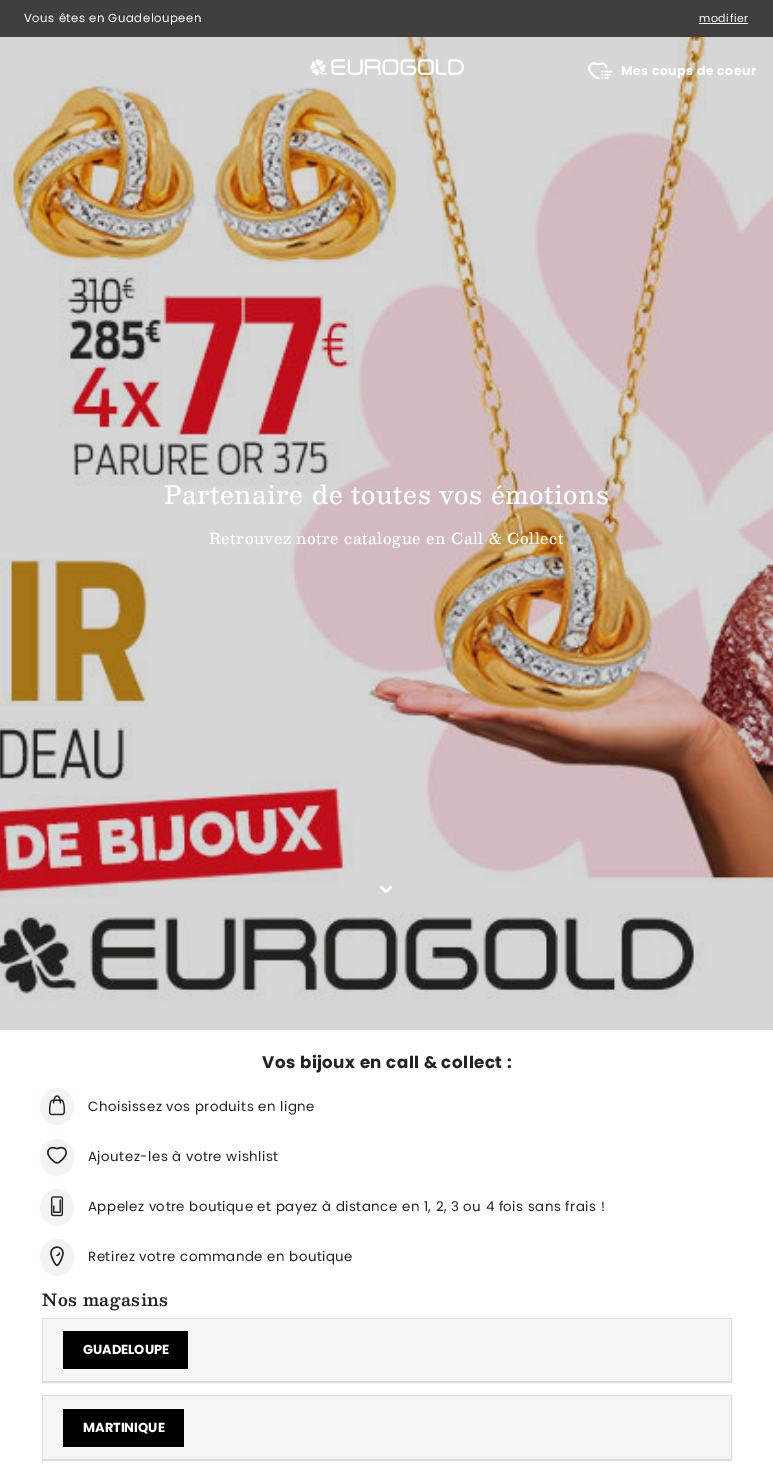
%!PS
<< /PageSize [773 1471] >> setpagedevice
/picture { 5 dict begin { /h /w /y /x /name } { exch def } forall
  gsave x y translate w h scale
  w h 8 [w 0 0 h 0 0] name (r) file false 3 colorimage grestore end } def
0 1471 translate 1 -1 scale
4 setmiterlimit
1 setgray
0 0 773 1471 rectfill
0.247 setgray
0 0 773 37 rectfill
/Poppins-Regular [11.7 0 0 -11.7 0 0] selectfont
1 setgray
24 22 moveto 0.5 0 (Vous êtes en Guadeloupeen) ashow
/Poppins-Regular [11 0 0 -11 0 0] selectfont
699 22 moveto 0.5 0 (modifier) ashow
699 23 49 1 rectfill
(img3.rgb) 0 37 773 993 picture
(img1.rgb) 310 59 154 17 picture
(img2.rgb) 588 62 25 17 picture
/Poppins-Bold [12.5 0 0 -12.5 0 0] selectfont
621 75 moveto 0.5 0 (Mes coups de coeur) ashow
/Besley-Medium [25 0 0 -25 0 0] selectfont
164 504 moveto 0.5 0 (Partenaire de toutes vos émotions) ashow
/Besley-Medium [15 0 0 -15 0 0] selectfont
209 544 moveto 0.5 0 (Retrouvez notre catalogue en Call & Collect) ashow
(img4.rgb) 379 885 13 8 picture
/Poppins-Bold [16.7 0 0 -16.7 0 0] selectfont
0.137 setgray
262 1068 moveto 0.5 0 (Vos bijoux en call & collect :) ashow
0.969 0.949 0.949 setrgbcolor
newpath 57 1088 moveto 66.5 1088 74 1096.5 74 1106.5 curveto 74 1116.5 66.5 1125 57 1125 curveto 47.5 1125 40 1116.5 40 1106.5 curveto 40 1096.5 47.5 1088 57 1088 curveto closepath fill
(img5.rgb) 48 1095 18 21 picture
/Poppins-Regular [13.35 0 0 -13.35 0 0] selectfont
0.137 setgray
88 1111 moveto 0.5 0 (Choisissez vos produits en ligne) ashow
0.969 0.949 0.949 setrgbcolor
newpath 57 1139 moveto 66.5 1139 74 1147.5 74 1157.5 curveto 74 1167.5 66.5 1176 57 1176 curveto 47.5 1176 40 1167.5 40 1157.5 curveto 40 1147.5 47.5 1139 57 1139 curveto closepath fill
(img6.rgb) 47 1146 20 18 picture
0.137 setgray
88 1161 moveto 0.5 0 (Ajoutez-les à votre wishlist) ashow
0.969 0.949 0.949 setrgbcolor
newpath 57 1189 moveto 66.5 1189 74 1197.5 74 1207.5 curveto 74 1217.5 66.5 1226 57 1226 curveto 47.5 1226 40 1217.5 40 1207.5 curveto 40 1197.5 47.5 1189 57 1189 curveto closepath fill
(img7.rgb) 50 1196 14 21 picture
0.137 setgray
88 1211 moveto 0.5 0 (Appelez votre boutique et payez à distance en 1, 2, 3 ou 4 fois sans frais !) ashow
0.969 0.949 0.949 setrgbcolor
newpath 57 1239 moveto 66.5 1239 74 1247.5 74 1257.5 curveto 74 1267.5 66.5 1276 57 1276 curveto 47.5 1276 40 1267.5 40 1257.5 curveto 40 1247.5 47.5 1239 57 1239 curveto closepath fill
(img8.rgb) 50 1246 14 21 picture
0.137 setgray
88 1261 moveto 0.5 0 (Retirez votre commande en boutique) ashow
/Besley-SemiBold [16.7 0 0 -16.7 0 0] selectfont
42 1306 moveto 0.5 0 (Nos magasins) ashow
0.875 setgray
42.5 1318.5 689 64 rectstroke
0.961 setgray
43 1319 688 62 rectfill
0.839 setgray
43 1381 688 1 rectfill
0 setgray
63 1331 125 38 rectfill
/Poppins-Bold [13 0 0 -13 0 0] selectfont
1 setgray
83 1354 moveto (GUADELOUPE) show
0.875 setgray
42.5 1395.5 689 65 rectstroke
0.961 setgray
43 1396 688 63 rectfill
0.839 setgray
43 1459 688 1 rectfill
0 setgray
63 1409 121 38 rectfill
1 setgray
83 1432 moveto (MARTINIQUE) show
showpage
